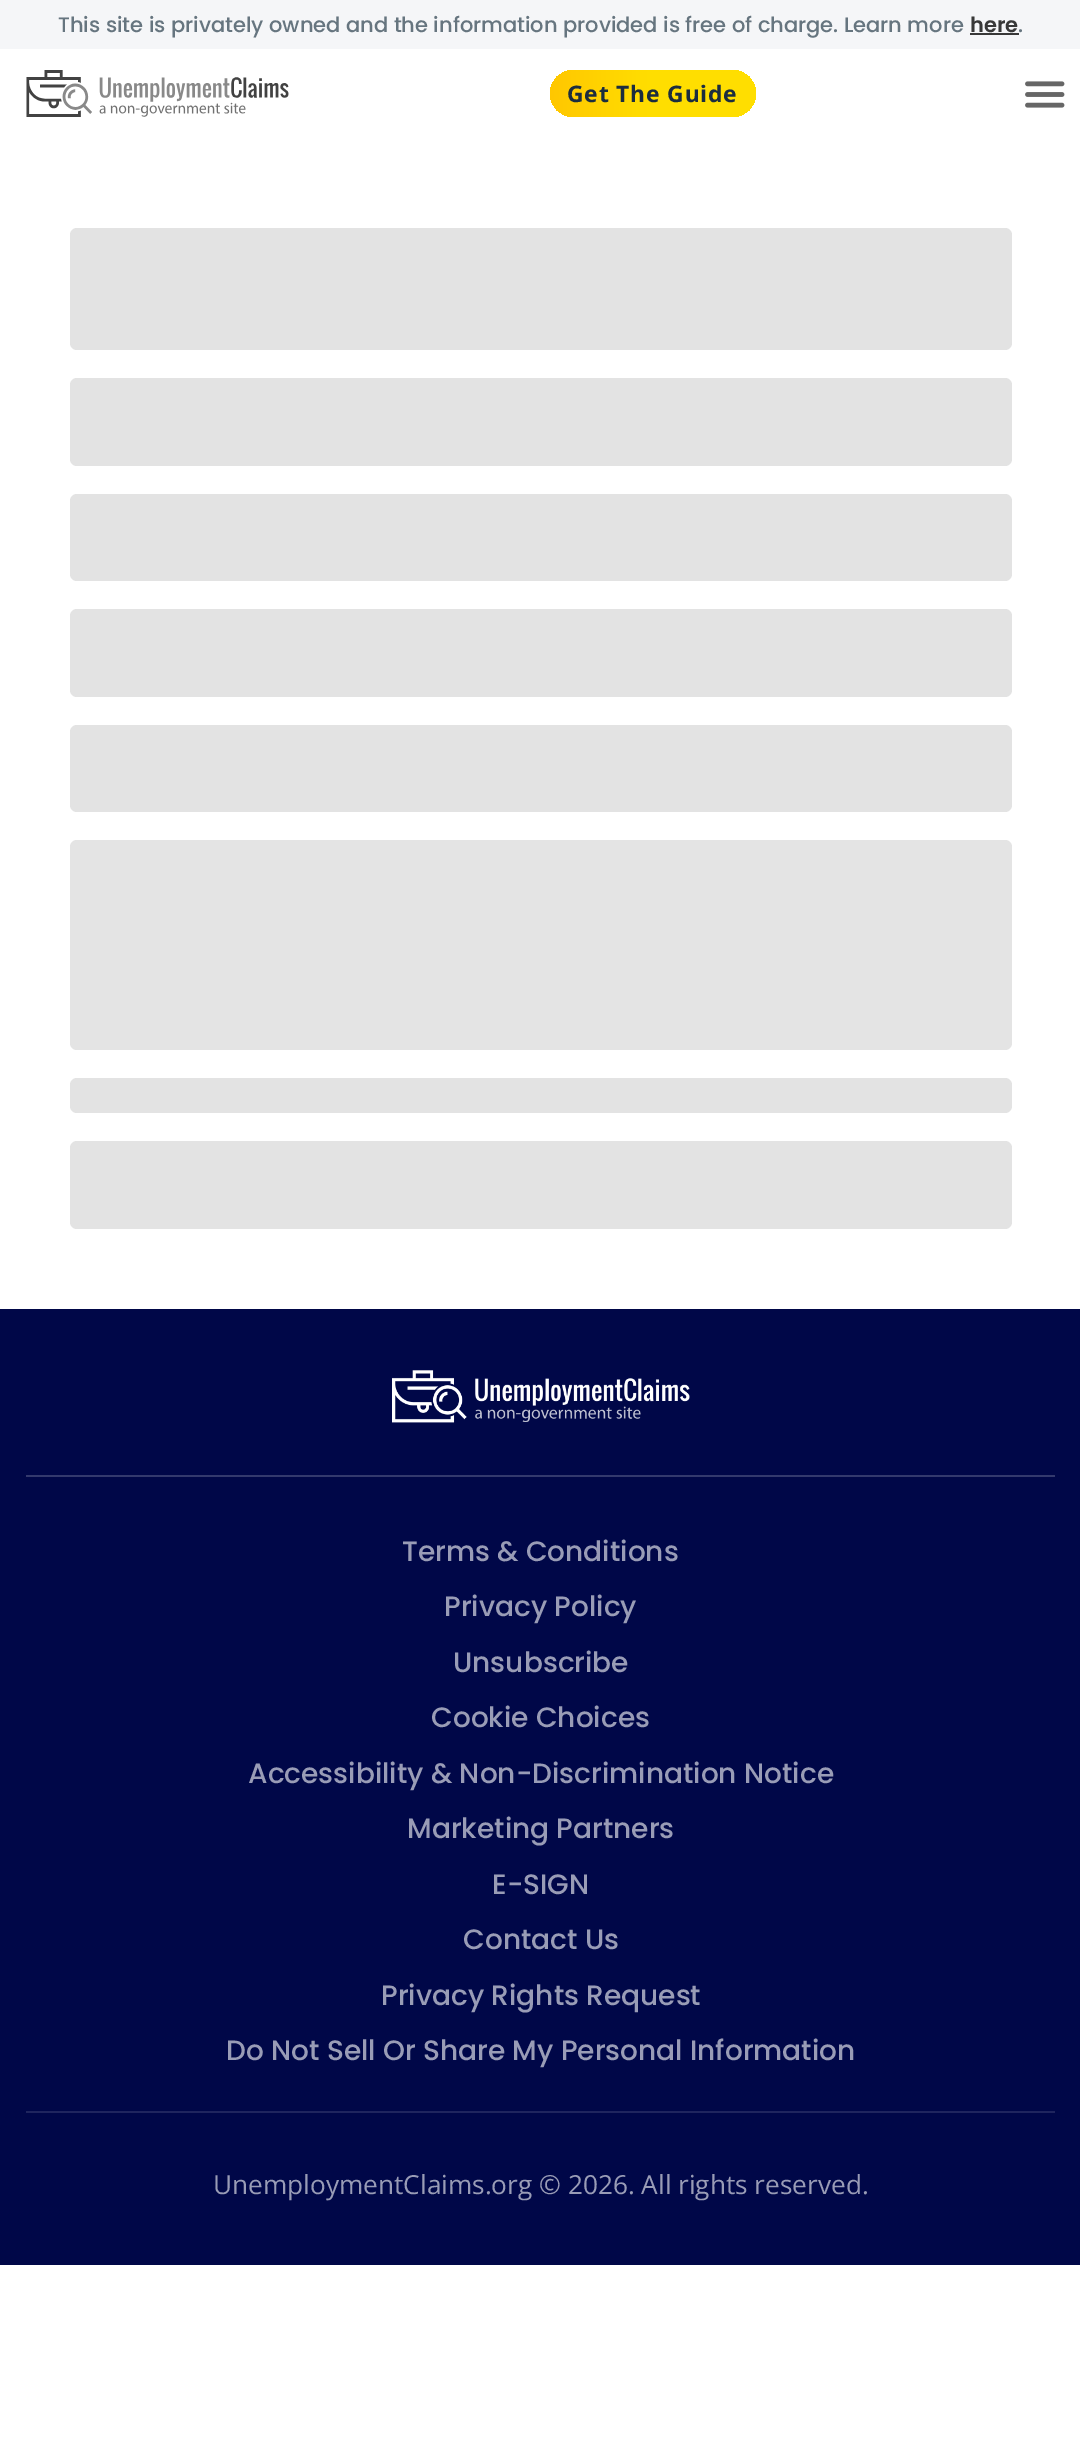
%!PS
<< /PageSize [1080 2440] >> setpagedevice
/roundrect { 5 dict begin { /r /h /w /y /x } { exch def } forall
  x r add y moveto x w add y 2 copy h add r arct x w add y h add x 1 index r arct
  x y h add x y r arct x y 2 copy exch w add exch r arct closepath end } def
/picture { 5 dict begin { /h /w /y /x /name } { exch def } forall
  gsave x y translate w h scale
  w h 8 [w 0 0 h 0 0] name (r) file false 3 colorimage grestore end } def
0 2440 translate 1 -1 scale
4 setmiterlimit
1 setgray
0 0 1080 2440 rectfill
0.961 0.965 0.973 setrgbcolor
0 0 1080 49 rectfill
/Poppins-Medium [21 0 0 -21 0 0] selectfont
0.4 0.459 0.498 setrgbcolor
58 32 moveto (This site is privately owned and the information provided is free of charge. Learn more) show
/Poppins-SemiBold [21 0 0 -21 0 0] selectfont
0.22 setgray
970 32 moveto (here) show
970 33 49 2 rectfill
/Poppins-Medium [21 0 0 -21 0 0] selectfont
0.4 0.459 0.498 setrgbcolor
1018 32 moveto (.) show
(img1.rgb) 26 70 263 47 picture
gsave 550 70 206 47 23.5 roundrect clip newpath
<< /ShadingType 2 /ColorSpace /DeviceRGB /Coords [550 94 756 94] /Extend [true true] /Function << /FunctionType 3 /Domain [0 1] /Functions [<< /FunctionType 2 /Domain [0 1] /C0 [1 0.78 0] /C1 [1 0.871 0] /N 1 >> << /FunctionType 2 /Domain [0 1] /C0 [1 0.871 0] /C1 [1 0.871 0] /N 1 >>] /Bounds [0.49] /Encode [0 1 0 1] >> >> shfill grestore
/NotoSans-Bold [22.75 0 0 -22.75 0 0] selectfont
0.106 0.176 0.247 setrgbcolor
567 102 moveto 0.9 0 (Get The Guide) ashow
(img2.rgb) 1025 81 40 27 picture
0.89 setgray
70 228 942 122 7 roundrect fill
70 378 942 88 7 roundrect fill
70 494 942 87 7 roundrect fill
70 609 942 88 7 roundrect fill
70 725 942 87 7 roundrect fill
0.894 setgray
70 840 942 210 7 roundrect fill
0.89 setgray
70 1078 942 35 7 roundrect fill
70 1141 942 88 7 roundrect fill
0 0.027 0.282 setrgbcolor
0 1309 1080 956 rectfill
(img3.rgb) 392 1370 298 53 picture
0.2 0.224 0.427 setrgbcolor
26 1475 1029 2 rectfill
/Poppins-Medium [28 0 0 -28 0 0] selectfont
0.6 0.612 0.714 setrgbcolor
402 1561 moveto (Terms & Conditions) show
444 1616 moveto (Privacy Policy) show
453 1672 moveto (Unsubscribe) show
431 1727 moveto (Cookie Choices) show
248 1783 moveto (Accessibility & Non-Discrimination Notice) show
407 1838 moveto (Marketing Partners) show
492 1894 moveto (E-SIGN) show
463 1949 moveto (Contact Us) show
381 2005 moveto (Privacy Rights Request) show
226 2060 moveto (Do Not Sell Or Share My Personal Information) show
0.122 0.145 0.369 setrgbcolor
26 2111 1029 2 rectfill
/OpenSans-Regular [26.25 0 0 -26.25 0 0] selectfont
0.6 0.612 0.714 setrgbcolor
213 2194 moveto (UnemploymentClaims.org © 2026. All rights reserved.) show
showpage
